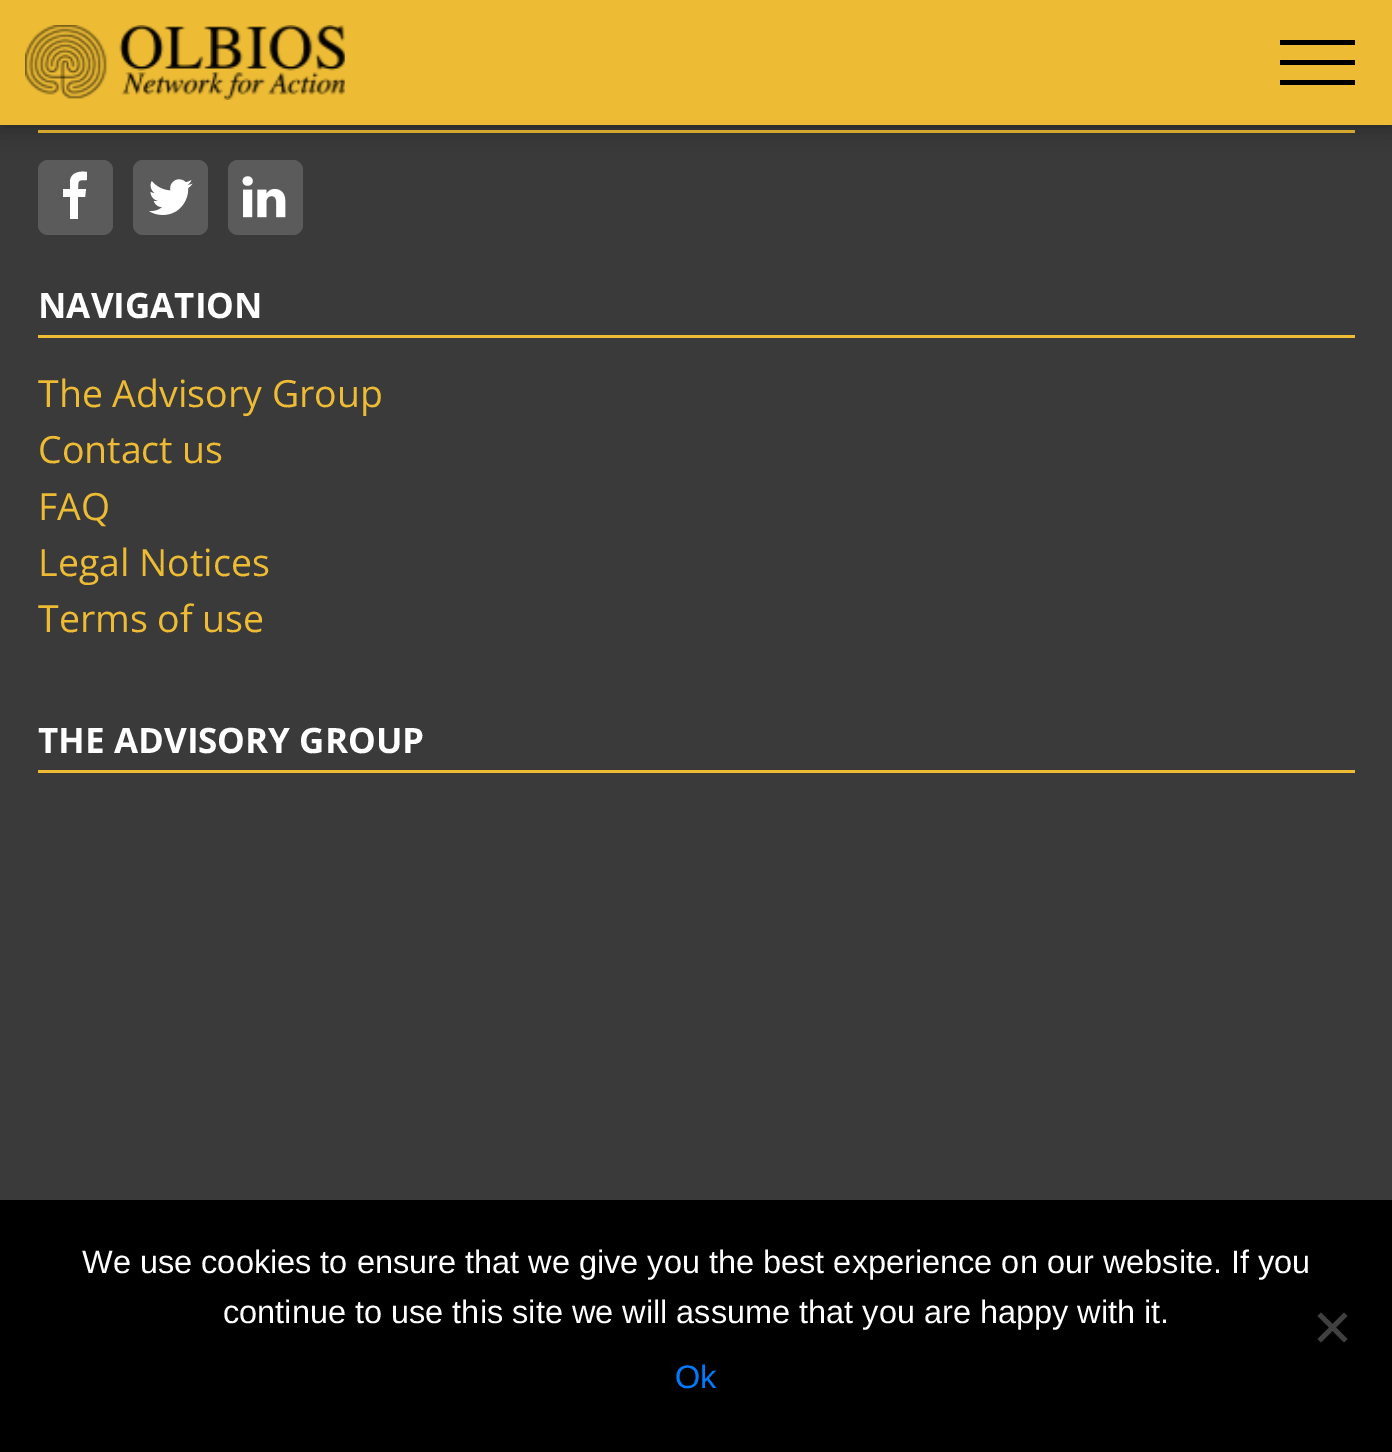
%!PS
<< /PageSize [1392 1452] /PageUsesTransparency true >> setpagedevice
/alpha { dup .setfillconstantalpha .setstrokeconstantalpha } def
/roundrect { 5 dict begin { /r /h /w /y /x } { exch def } forall
  x r add y moveto x w add y 2 copy h add r arct x w add y h add x 1 index r arct
  x y h add x y r arct x y 2 copy exch w add exch r arct closepath end } def
/shadow { 12 dict begin { /a /b /q /h /w /y /x } { exch def } forall gsave /was 0 def
  9 -2 -9 { dup b mul 4 div /e exch def 1 sub .425 mul 2.718 exch exp 1 add a .99 .min exch div /now exch def
    1 1 now sub 1 was sub div sub alpha /was now def
    w h .min e 2 mul add 0 gt { x e sub y e sub w e 2 mul add h e 2 mul add
      q e add b .6 mul add w h .min 2 div e add .min 0 .max roundrect fill } if } for grestore end } def
/picture { 5 dict begin { /h /w /y /x /name } { exch def } forall
  gsave x y translate w h scale
  w h 8 [w 0 0 h 0 0] name (r) file false 3 colorimage grestore end } def
0 .pushpdf14devicefilter
0 1452 translate 1 -1 scale
4 setmiterlimit
0.227 setgray
0 0 1392 1452 rectfill
0.929 0.733 0.204 setrgbcolor
38 130 1317 3 rectfill
0.357 setgray
38 160 75 75 10 roundrect fill
133 160 75 75 10 roundrect fill
228 160 75 75 10 roundrect fill
0 setgray
0 0 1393 125 0 12.5 0.35 shadow
0.929 0.733 0.204 setrgbcolor
0 0 1392 125 rectfill
(img1.rgb) 25 25 320 75 picture
0 setgray
1280 40 75 5 rectfill
1280 60 75 5 rectfill
1280 80 75 5 rectfill
1 setgray
newpath 87 172 moveto 87 180 lineto 78 180 78 180 78 189 curveto 86 189 lineto 85 197 lineto 78 197 lineto 78 219 lineto 70 219 lineto 70 197 lineto 63 197 lineto 63 189 lineto 70 189 lineto 70 181 lineto 71 172 80 171 87 172 curveto closepath fill
(img2.rgb) 149 179 44 36 picture
(img3.rgb) 242 176 44 42 picture
0.929 0.733 0.204 setrgbcolor
38 335 1317 3 rectfill
/OpenSans-Bold [35 0 0 -35 0 0] selectfont
1 setgray
38 318 moveto (NAVIGATION) show
/OpenSans-Regular [37.5 0 0 -37.5 0 0] selectfont
0.929 0.733 0.204 setrgbcolor
38 407 moveto (The Advisory Group) show
38 463 moveto (Contact us) show
38 520 moveto (FAQ) show
38 576 moveto (Legal Notices) show
38 632 moveto (Terms of use) show
38 770 1317 3 rectfill
/OpenSans-Bold [35 0 0 -35 0 0] selectfont
1 setgray
38 753 moveto (THE ADVISORY GROUP) show
0 setgray
0 1200 1392 252 rectfill
/LiberationSans-Regular [32.5 0 0 -32.5 0 0] selectfont
1 setgray
82 1273 moveto (We use cookies to ensure that we give you the best experience on our website. If you) show
223 1323 moveto (continue to use this site we will assume that you are happy with it.) show
0.251 setgray
newpath 1344 1312.5 moveto 1347.5 1316 lineto 1321 1342.5 lineto 1317.5 1339 lineto closepath fill
newpath 1317.5 1316 moveto 1321 1312.5 lineto 1347.5 1339 lineto 1344 1342.5 lineto closepath fill
0 0.482 1 setrgbcolor
675 1388 moveto (Ok) show
.poppdf14devicefilter showpage
